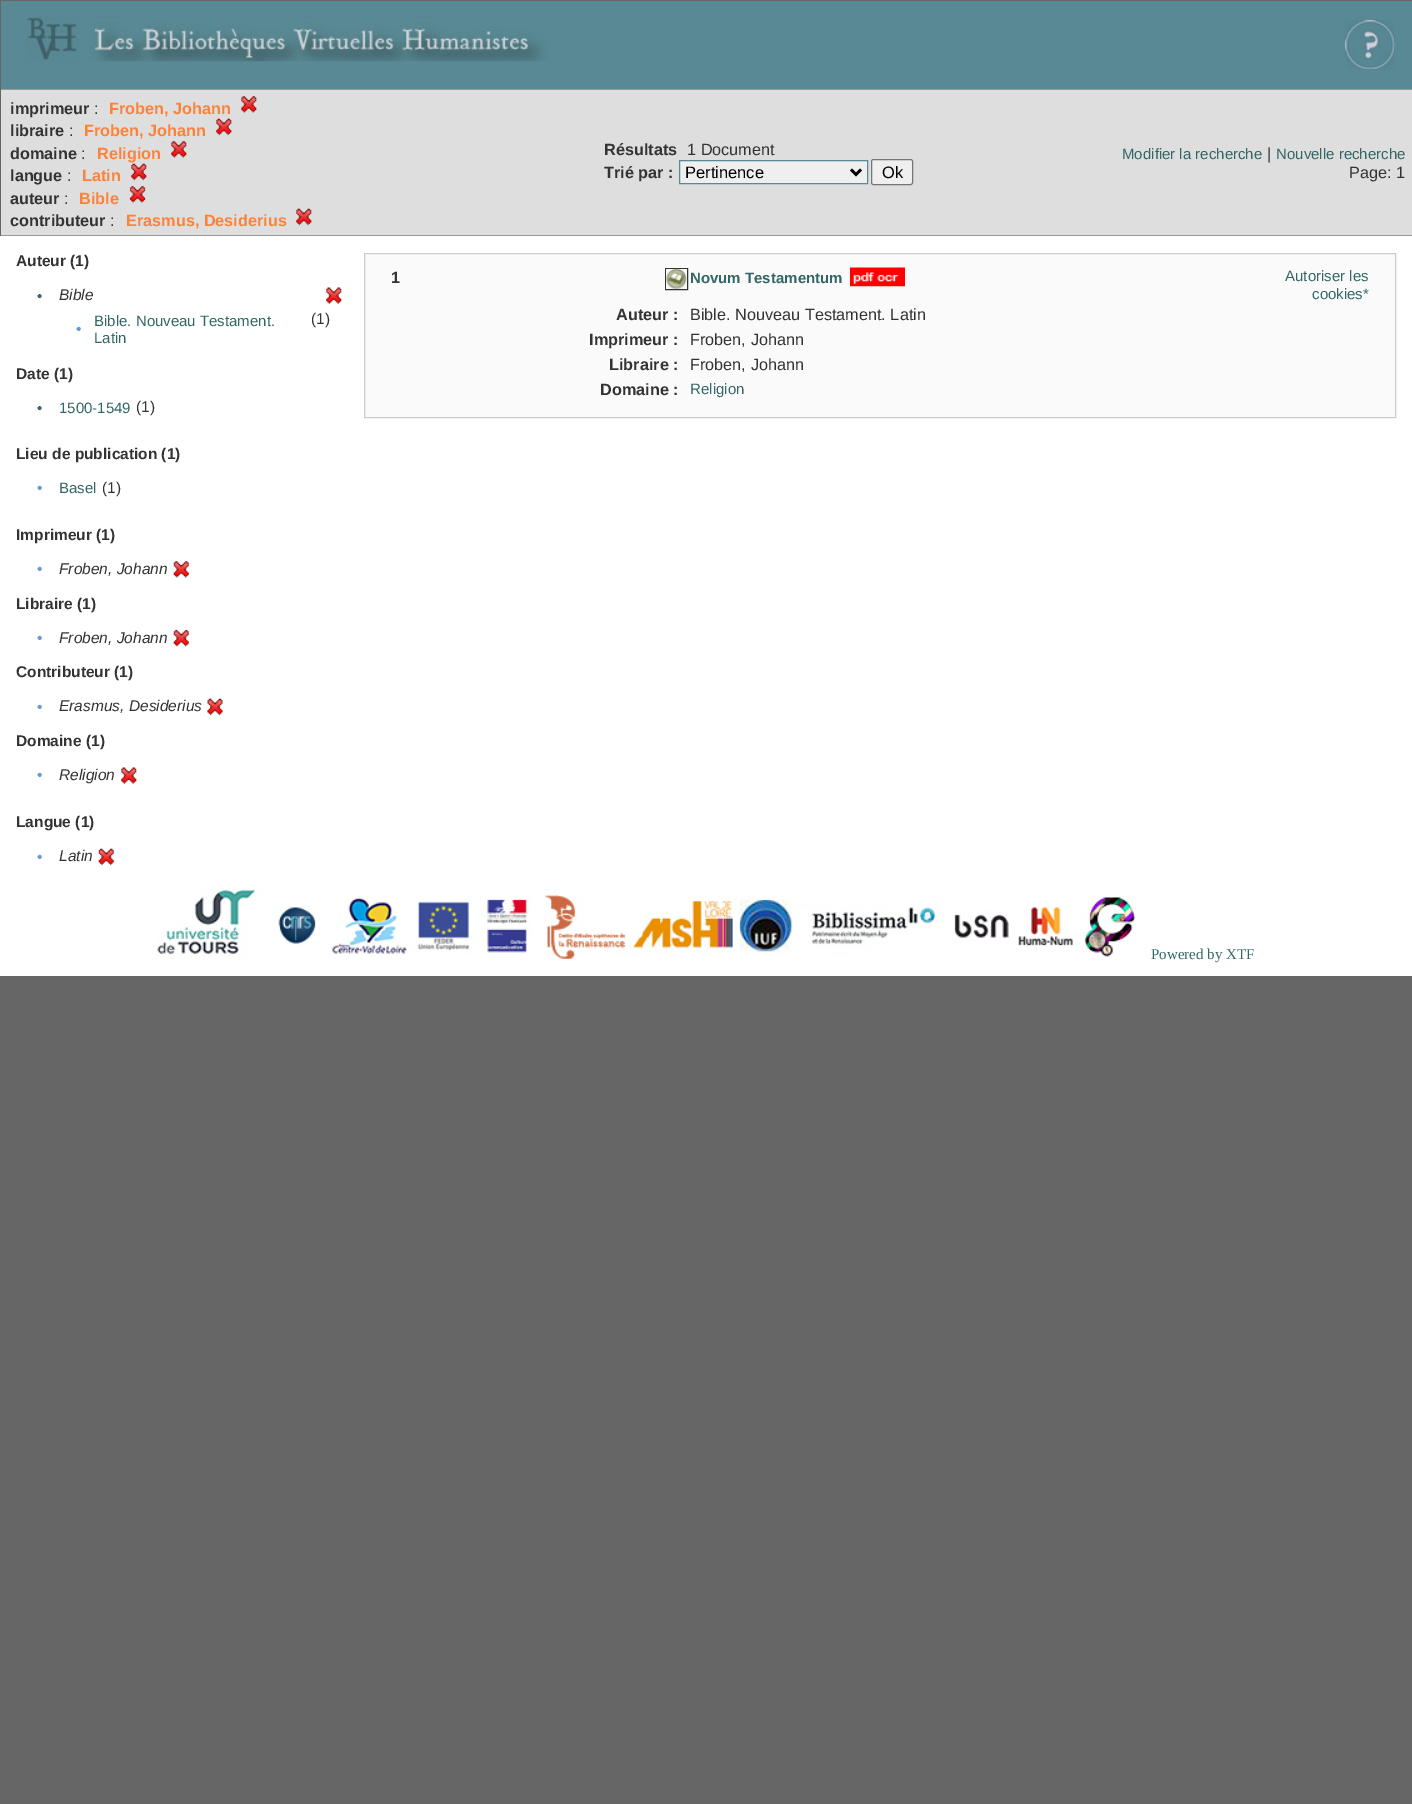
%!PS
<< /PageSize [1412 1804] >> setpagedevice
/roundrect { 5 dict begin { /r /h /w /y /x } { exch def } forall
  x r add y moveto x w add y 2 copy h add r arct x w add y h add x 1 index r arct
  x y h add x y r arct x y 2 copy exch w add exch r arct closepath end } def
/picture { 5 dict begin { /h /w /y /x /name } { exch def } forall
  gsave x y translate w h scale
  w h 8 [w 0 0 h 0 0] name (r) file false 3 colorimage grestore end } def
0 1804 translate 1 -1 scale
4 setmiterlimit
0.4 setgray
0 0 1412 1804 rectfill
0.349 0.537 0.584 setrgbcolor
1 1 1411 88 rectfill
(img1.rgb) 26 15 522 47 picture
(img2.rgb) 1345 20 50 50 picture
0.871 0.871 0.875 setrgbcolor
1 90 1411 145 rectfill
0.6 setgray
0 89 1412 1 rectfill
0 235 1412 1 rectfill
0.4 setgray
0 89 1 147 rectfill
/LiberationSans-Bold [16.25 0 0 -16.25 0 0] selectfont
0.2 setgray
10 114 moveto (imprimeur) show
/LiberationSans-Regular [16.25 0 0 -16.25 0 0] selectfont
94 114 moveto (:) show
/LiberationSans-Bold [16.25 0 0 -16.25 0 0] selectfont
0.992 0.51 0.224 setrgbcolor
109 114 moveto (Froben, Johann) show
(img3.rgb) 241 96 16 17 picture
0.2 setgray
10 136 moveto (libraire) show
/LiberationSans-Regular [16.25 0 0 -16.25 0 0] selectfont
69 136 moveto (:) show
/LiberationSans-Bold [16.25 0 0 -16.25 0 0] selectfont
0.992 0.51 0.224 setrgbcolor
84 136 moveto (Froben, Johann) show
(img4.rgb) 216 118 16 18 picture
0.2 setgray
10 159 moveto (domaine) show
/LiberationSans-Regular [16.25 0 0 -16.25 0 0] selectfont
81 159 moveto (:) show
/LiberationSans-Bold [16.25 0 0 -16.25 0 0] selectfont
0.992 0.51 0.224 setrgbcolor
97 159 moveto (Religion) show
(img3.rgb) 171 141 16 17 picture
0.2 setgray
10 181 moveto (langue) show
/LiberationSans-Regular [16.25 0 0 -16.25 0 0] selectfont
67 181 moveto (:) show
/LiberationSans-Bold [16.25 0 0 -16.25 0 0] selectfont
0.992 0.51 0.224 setrgbcolor
82 181 moveto (Latin) show
(img4.rgb) 131 163 16 18 picture
0.2 setgray
10 204 moveto (auteur) show
/LiberationSans-Regular [16.25 0 0 -16.25 0 0] selectfont
64 204 moveto (:) show
/LiberationSans-Bold [16.25 0 0 -16.25 0 0] selectfont
0.992 0.51 0.224 setrgbcolor
79 204 moveto (Bible) show
(img5.rgb) 129 186 17 17 picture
0.2 setgray
10 226 moveto (contributeur) show
/LiberationSans-Regular [16.25 0 0 -16.25 0 0] selectfont
110 226 moveto (:) show
/LiberationSans-Bold [16.25 0 0 -16.25 0 0] selectfont
0.992 0.51 0.224 setrgbcolor
126 226 moveto (Erasmus, Desiderius) show
(img4.rgb) 296 208 16 18 picture
0.2 setgray
604 155 moveto (Résultats) show
/LiberationSans-Regular [16.25 0 0 -16.25 0 0] selectfont
687 155 moveto (1 Document) show
/LiberationSans-Bold [16.25 0 0 -16.25 0 0] selectfont
604 178 moveto (Trié par :) show
0.937 setgray
newpath 679.5 160.5 moveto 867.5 160.5 lineto 867.5 183.5 lineto 679.5 183.5 lineto closepath gsave fill grestore
0.349 0.537 0.584 setrgbcolor
stroke
0 setgray
2.5 setlinewidth
newpath 851 169.5 moveto 856 174.5 lineto 861 169.5 lineto stroke
/LiberationSans-Regular [16.5 0 0 -16.5 0 0] selectfont
685 178 moveto (Pertinence) show
0.937 setgray
871.5 159.5 41 25 2 roundrect gsave fill grestore
0.463 setgray
1 setlinewidth
stroke
0 setgray
882 178 moveto (Ok) show
/LiberationSans-Regular [15 0 0 -15 0 0] selectfont
0.2 0.4 0.4 setrgbcolor
1122 159 moveto (Modifier la recherche) show
/LiberationSans-Regular [16.25 0 0 -16.25 0 0] selectfont
0.2 setgray
1267 159 moveto (|) show
/LiberationSans-Regular [15 0 0 -15 0 0] selectfont
0.2 0.4 0.4 setrgbcolor
1276 159 moveto (Nouvelle recherche) show
/LiberationSans-Regular [16.25 0 0 -16.25 0 0] selectfont
0.2 setgray
1349 178 moveto (Page: 1) show
1 setgray
0 236 1412 740 rectfill
/LiberationSans-Bold [15.5 0 0 -15.5 0 0] selectfont
0.2 setgray
16 266 moveto (Auteur \(1\)) show
/LiberationSans-Regular [15 0 0 -15 0 0] selectfont
0.2 0.4 0.4 setrgbcolor
37 301 moveto (•) show
/LiberationSans-Italic [15.5 0 0 -15.5 0 0] selectfont
0.2 setgray
59 300 moveto (Bible) show
(img6.rgb) 326 287 16 17 picture
/LiberationSans-Regular [15.5 0 0 -15.5 0 0] selectfont
0.4 0.6 0.8 setrgbcolor
76 334 moveto (•) show
/LiberationSans-Regular [15 0 0 -15 0 0] selectfont
0.2 0.4 0.4 setrgbcolor
94 326 moveto (Bible. Nouveau Testament.) show
94 343 moveto (Latin) show
/LiberationSans-Regular [15.5 0 0 -15.5 0 0] selectfont
0.2 setgray
311 324 moveto (\(1\)) show
/LiberationSans-Bold [15.5 0 0 -15.5 0 0] selectfont
16 379 moveto (Date \(1\)) show
/LiberationSans-Regular [15 0 0 -15 0 0] selectfont
0.2 0.4 0.4 setrgbcolor
37 413 moveto (•) show
59 413 moveto (1500-1549) show
/LiberationSans-Regular [15.5 0 0 -15.5 0 0] selectfont
0.2 setgray
136 412 moveto (\(1\)) show
/LiberationSans-Bold [15.5 0 0 -15.5 0 0] selectfont
16 459 moveto (Lieu de publication \(1\)) show
/LiberationSans-Regular [15.5 0 0 -15.5 0 0] selectfont
0.4 0.6 0.8 setrgbcolor
37 493 moveto (•) show
/LiberationSans-Regular [15 0 0 -15 0 0] selectfont
0.2 0.4 0.4 setrgbcolor
59 493 moveto (Basel) show
/LiberationSans-Regular [15.5 0 0 -15.5 0 0] selectfont
0.2 setgray
102 493 moveto (\(1\)) show
/LiberationSans-Bold [15.5 0 0 -15.5 0 0] selectfont
16 540 moveto (Imprimeur \(1\)) show
/LiberationSans-Regular [15.5 0 0 -15.5 0 0] selectfont
0.4 0.6 0.8 setrgbcolor
37 574 moveto (•) show
/LiberationSans-Italic [15.5 0 0 -15.5 0 0] selectfont
0.2 setgray
59 574 moveto (Froben, Johann) show
(img7.rgb) 173 561 16 17 picture
/LiberationSans-Bold [15.5 0 0 -15.5 0 0] selectfont
16 609 moveto (Libraire \(1\)) show
/LiberationSans-Regular [15.5 0 0 -15.5 0 0] selectfont
0.4 0.6 0.8 setrgbcolor
37 643 moveto (•) show
/LiberationSans-Italic [15.5 0 0 -15.5 0 0] selectfont
0.2 setgray
59 643 moveto (Froben, Johann) show
(img8.rgb) 173 629 16 18 picture
/LiberationSans-Bold [15.5 0 0 -15.5 0 0] selectfont
16 677 moveto (Contributeur \(1\)) show
/LiberationSans-Regular [15.5 0 0 -15.5 0 0] selectfont
0.4 0.6 0.8 setrgbcolor
37 712 moveto (•) show
/LiberationSans-Italic [15.5 0 0 -15.5 0 0] selectfont
0.2 setgray
59 711 moveto (Erasmus, Desiderius) show
(img9.rgb) 207 698 16 18 picture
/LiberationSans-Bold [15.5 0 0 -15.5 0 0] selectfont
16 746 moveto (Domaine \(1\)) show
/LiberationSans-Regular [15.5 0 0 -15.5 0 0] selectfont
0.4 0.6 0.8 setrgbcolor
37 780 moveto (•) show
/LiberationSans-Italic [15.5 0 0 -15.5 0 0] selectfont
0.2 setgray
59 780 moveto (Religion) show
(img10.rgb) 121 767 16 17 picture
/LiberationSans-Bold [15.5 0 0 -15.5 0 0] selectfont
16 827 moveto (Langue \(1\)) show
/LiberationSans-Regular [15.5 0 0 -15.5 0 0] selectfont
0.4 0.6 0.8 setrgbcolor
37 862 moveto (•) show
/LiberationSans-Italic [15.5 0 0 -15.5 0 0] selectfont
0.2 setgray
59 861 moveto (Latin) show
(img11.rgb) 98 848 16 18 picture
0.98 0.98 0.984 setrgbcolor
newpath 364.5 253.5 moveto 1395.5 253.5 lineto 1395.5 417.5 lineto 364.5 417.5 lineto closepath gsave fill grestore
0.8 setgray
stroke
/LiberationSans-Bold [16.25 0 0 -16.25 0 0] selectfont
0.2 setgray
391 283 moveto (1) show
665.5 268.5 22 21 rectstroke
(img12.rgb) 666 268 21 21 picture
/LiberationSans-Bold [15 0 0 -15 0 0] selectfont
0.2 0.4 0.4 setrgbcolor
690 283 moveto (Novum Testamentum) show
(img13.rgb) 850 267 55 20 picture
/LiberationSans-Regular [15 0 0 -15 0 0] selectfont
1285 281 moveto (Autoriser les) show
1312 299 moveto (cookies*) show
/LiberationSans-Bold [16.25 0 0 -16.25 0 0] selectfont
0.2 setgray
616 320 moveto (Auteur :) show
/LiberationSans-Regular [16.25 0 0 -16.25 0 0] selectfont
690 320 moveto (Bible. Nouveau Testament. Latin) show
/LiberationSans-Bold [16.25 0 0 -16.25 0 0] selectfont
589 345 moveto (Imprimeur :) show
/LiberationSans-Regular [16.25 0 0 -16.25 0 0] selectfont
690 345 moveto (Froben, Johann) show
/LiberationSans-Bold [16.25 0 0 -16.25 0 0] selectfont
609 370 moveto (Libraire :) show
/LiberationSans-Regular [16.25 0 0 -16.25 0 0] selectfont
690 370 moveto (Froben, Johann) show
/LiberationSans-Bold [16.25 0 0 -16.25 0 0] selectfont
600 395 moveto (Domaine :) show
/LiberationSans-Regular [15 0 0 -15 0 0] selectfont
0.2 0.4 0.4 setrgbcolor
690 394 moveto (Religion) show
(img14.rgb) 157 889 979 70 picture
/LiberationSerif-Regular [15 0 0 -15 0 0] selectfont
1151 959 moveto (Powered by XTF) show
showpage
